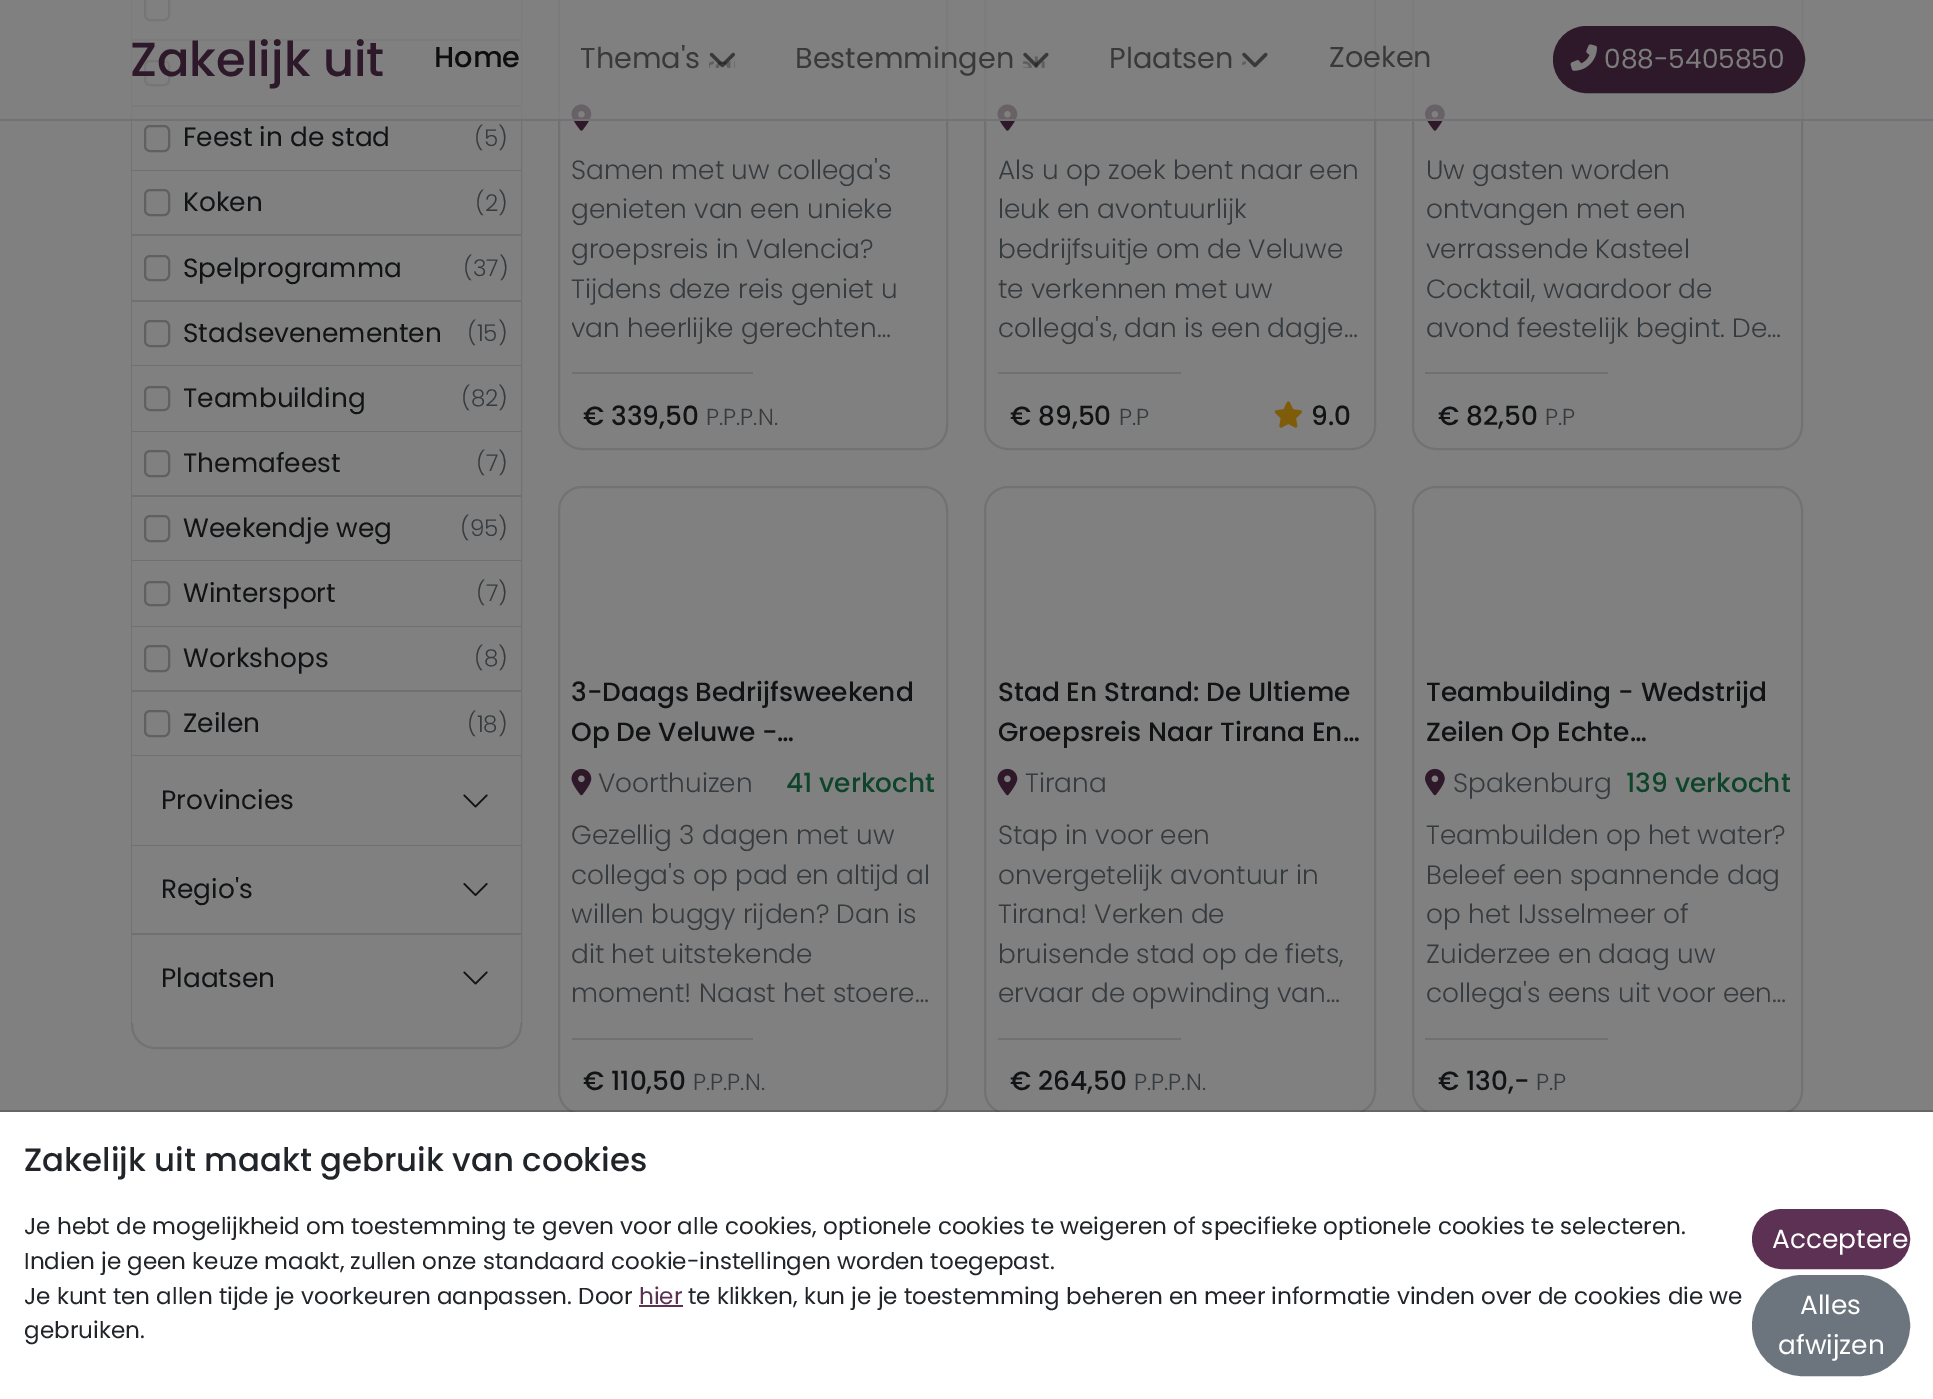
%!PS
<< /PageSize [1933 1399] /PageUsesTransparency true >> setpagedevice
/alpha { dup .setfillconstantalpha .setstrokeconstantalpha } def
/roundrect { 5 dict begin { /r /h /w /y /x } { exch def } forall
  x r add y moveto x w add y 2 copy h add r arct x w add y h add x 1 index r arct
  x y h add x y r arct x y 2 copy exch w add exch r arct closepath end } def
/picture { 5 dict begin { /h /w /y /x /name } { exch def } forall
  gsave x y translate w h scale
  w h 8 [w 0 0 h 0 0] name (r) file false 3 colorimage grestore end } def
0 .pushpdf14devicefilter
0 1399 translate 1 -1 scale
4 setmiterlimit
0.502 setgray
0 0 1933 1399 rectfill
0.447 0.447 0.455 setrgbcolor
2 setlinewidth
132 -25 389 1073 23 roundrect stroke
0.502 setgray
132 0 389 933 rectfill
0.439 setgray
132 39 389 2 rectfill
0.376 setgray
145 -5 24 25 5 roundrect stroke
0.439 setgray
132 105 389 2 rectfill
0.376 setgray
145 61 24 24 5 roundrect stroke
0.447 0.447 0.455 setrgbcolor
559 -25 388 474 23 roundrect stroke
(img7.rgb) 571 104 21 27 picture
985 -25 390 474 23 roundrect stroke
(img7.rgb) 997 104 21 27 picture
1413 -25 389 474 23 roundrect stroke
(img9.rgb) 1425 104 20 27 picture
0.7 alpha
0.502 setgray
131 0 1672 119 rectfill
1 alpha
0.447 0.447 0.455 setrgbcolor
0 119 1933 2 rectfill
/Poppins-Medium [48 0 0 -48 0 0] selectfont
0.18 0.098 0.165 setrgbcolor
130 76 moveto (Zakelijk uit) show
/Poppins-Medium [28.75 0 0 -28.75 0 0] selectfont
0.051 setgray
434 67 moveto (Home) show
/Poppins-Regular [28.75 0 0 -28.75 0 0] selectfont
0.224 setgray
580 68 moveto (Thema's) show
(img1.rgb) 709 52 26 16 picture
795 68 moveto (Bestemmingen) show
(img2.rgb) 1023 52 26 16 picture
1109 68 moveto (Plaatsen) show
(img3.rgb) 1242 52 26 16 picture
1329 67 moveto (Zoeken) show
0.18 0.098 0.165 setrgbcolor
1554 27 250 65 32.5 roundrect gsave fill grestore
stroke
(img4.rgb) 1570 44 27 27 picture
/Poppins-Regular [26.4 0 0 -26.4 0 0] selectfont
0.486 0.49 0.49 setrgbcolor
1604 68 moveto (088-5405850) show
0.12 alpha
0 setgray
132 755 389 1 rectfill
1 alpha
0.439 setgray
132 170 389 1 rectfill
0.376 setgray
145 126 24 25 5 roundrect stroke
0.067 0.075 0.082 setrgbcolor
183 146 moveto (Feest in de stad) show
/Poppins-Light [23.1 0 0 -23.1 0 0] selectfont
0.212 0.231 0.247 setrgbcolor
474 146 moveto (\(5\)) show
0.439 setgray
132 234 389 2 rectfill
0.376 setgray
145 190 24 25 5 roundrect stroke
/Poppins-Regular [26.4 0 0 -26.4 0 0] selectfont
0.067 0.075 0.082 setrgbcolor
183 211 moveto (Koken) show
/Poppins-Light [23.1 0 0 -23.1 0 0] selectfont
0.212 0.231 0.247 setrgbcolor
475 211 moveto (\(2\)) show
0.439 setgray
132 300 389 2 rectfill
0.376 setgray
145 256 24 24 5 roundrect stroke
/Poppins-Regular [26.4 0 0 -26.4 0 0] selectfont
0.067 0.075 0.082 setrgbcolor
183 277 moveto (Spelprogramma) show
/Poppins-Light [23.1 0 0 -23.1 0 0] selectfont
0.212 0.231 0.247 setrgbcolor
463 276 moveto (\(37\)) show
0.439 setgray
132 365 389 1 rectfill
0.376 setgray
145 321 24 25 5 roundrect stroke
/Poppins-Regular [26.4 0 0 -26.4 0 0] selectfont
0.067 0.075 0.082 setrgbcolor
183 342 moveto (Stadsevenementen) show
/Poppins-Light [23.1 0 0 -23.1 0 0] selectfont
0.212 0.231 0.247 setrgbcolor
467 341 moveto (\(15\)) show
0.439 setgray
132 431 389 1 rectfill
0.376 setgray
145 387 24 23 5 roundrect stroke
/Poppins-Regular [26.4 0 0 -26.4 0 0] selectfont
0.067 0.075 0.082 setrgbcolor
183 407 moveto (Teambuilding) show
/Poppins-Light [23.1 0 0 -23.1 0 0] selectfont
0.212 0.231 0.247 setrgbcolor
461 406 moveto (\(82\)) show
0.439 setgray
132 495 389 2 rectfill
0.376 setgray
145 451 24 25 5 roundrect stroke
/Poppins-Regular [26.4 0 0 -26.4 0 0] selectfont
0.067 0.075 0.082 setrgbcolor
183 472 moveto (Themafeest) show
/Poppins-Light [23.1 0 0 -23.1 0 0] selectfont
0.212 0.231 0.247 setrgbcolor
476 471 moveto (\(7\)) show
0.439 setgray
132 560 389 1 rectfill
0.376 setgray
145 516 24 25 5 roundrect stroke
/Poppins-Regular [26.4 0 0 -26.4 0 0] selectfont
0.067 0.075 0.082 setrgbcolor
183 537 moveto (Weekendje weg) show
/Poppins-Light [23.1 0 0 -23.1 0 0] selectfont
0.212 0.231 0.247 setrgbcolor
460 536 moveto (\(95\)) show
0.439 setgray
132 626 389 1 rectfill
0.376 setgray
145 582 24 23 5 roundrect stroke
/Poppins-Regular [26.4 0 0 -26.4 0 0] selectfont
0.067 0.075 0.082 setrgbcolor
183 602 moveto (Wintersport) show
/Poppins-Light [23.1 0 0 -23.1 0 0] selectfont
0.212 0.231 0.247 setrgbcolor
476 601 moveto (\(7\)) show
0.439 setgray
132 690 389 2 rectfill
0.376 setgray
145 646 24 25 5 roundrect stroke
/Poppins-Regular [26.4 0 0 -26.4 0 0] selectfont
0.067 0.075 0.082 setrgbcolor
183 667 moveto (Workshops) show
/Poppins-Light [23.1 0 0 -23.1 0 0] selectfont
0.212 0.231 0.247 setrgbcolor
474 666 moveto (\(8\)) show
0.376 setgray
145 711 24 25 5 roundrect stroke
/Poppins-Regular [26.4 0 0 -26.4 0 0] selectfont
0.067 0.075 0.082 setrgbcolor
183 732 moveto (Zeilen) show
/Poppins-Light [23.1 0 0 -23.1 0 0] selectfont
0.212 0.231 0.247 setrgbcolor
467 732 moveto (\(18\)) show
0.12 alpha
0 setgray
132 845 389 1 rectfill
/Poppins-Regular [26.4 0 0 -26.4 0 0] selectfont
1 alpha
0.067 0.075 0.082 setrgbcolor
161 809 moveto (Provincies) show
(img5.rgb) 463 794 25 14 picture
0.439 setgray
132 933 389 2 rectfill
0.067 0.075 0.082 setrgbcolor
161 898 moveto (Regio's) show
(img6.rgb) 463 883 25 13 picture
0.502 setgray
132 935 389 88 rectfill
0.067 0.075 0.082 setrgbcolor
161 987 moveto (Plaatsen) show
(img5.rgb) 463 971 25 14 picture
/Poppins-Light [26.4 0 0 -26.4 0 0] selectfont
0.212 0.231 0.247 setrgbcolor
571 179 moveto (Samen met uw collega's) show
571 218 moveto (genieten van een unieke) show
571 258 moveto (groepsreis in Valencia?) show
571 298 moveto (Tijdens deze reis geniet u) show
gsave
572 150 363 198 rectclip
571 337 moveto (van heerlijke gerechten…) show
grestore
0.439 setgray
572 372 181 2 rectfill
/Poppins-Medium [26.4 0 0 -26.4 0 0] selectfont
0.067 0.075 0.082 setrgbcolor
583 425 moveto (€ 339,50) show
/Poppins-Light [23.1 0 0 -23.1 0 0] selectfont
0.212 0.231 0.247 setrgbcolor
706 425 moveto (P.P.P.N.) show
/Poppins-Light [26.4 0 0 -26.4 0 0] selectfont
998 179 moveto (Als u op zoek bent naar een) show
998 218 moveto (leuk en avontuurlijk) show
998 258 moveto (bedrijfsuitje om de Veluwe) show
998 298 moveto (te verkennen met uw) show
998 337 moveto (collega's, dan is een dagje…) show
0.439 setgray
998 372 183 2 rectfill
/Poppins-Medium [26.4 0 0 -26.4 0 0] selectfont
0.067 0.075 0.082 setrgbcolor
1010 425 moveto (€ 89,50) show
/Poppins-Light [23.1 0 0 -23.1 0 0] selectfont
0.212 0.231 0.247 setrgbcolor
1119 425 moveto (P.P) show
(img8.rgb) 1274 401 28 27 picture
/Poppins-Medium [26.4 0 0 -26.4 0 0] selectfont
0.067 0.075 0.082 setrgbcolor
1311 425 moveto (9.0) show
/Poppins-Light [26.4 0 0 -26.4 0 0] selectfont
0.212 0.231 0.247 setrgbcolor
1426 179 moveto (Uw gasten worden) show
1426 218 moveto (ontvangen met een) show
1426 258 moveto (verrassende Kasteel) show
1426 298 moveto (Cocktail, waardoor de) show
1426 337 moveto (avond feestelijk begint. De…) show
0.439 setgray
1425 372 183 2 rectfill
/Poppins-Medium [26.4 0 0 -26.4 0 0] selectfont
0.067 0.075 0.082 setrgbcolor
1438 425 moveto (€ 82,50) show
/Poppins-Light [23.1 0 0 -23.1 0 0] selectfont
0.212 0.231 0.247 setrgbcolor
1545 425 moveto (P.P) show
0.447 0.447 0.455 setrgbcolor
559 487 388 627 23 roundrect stroke
/Poppins-Medium [26.4 0 0 -26.4 0 0] selectfont
0.067 0.075 0.082 setrgbcolor
571 701 moveto (3-Daags Bedrijfsweekend) show
gsave
572 674 363 78 rectclip
571 741 moveto (Op De Veluwe -…) show
grestore
(img10.rgb) 571 768 21 28 picture
/Poppins-Light [26.4 0 0 -26.4 0 0] selectfont
0.212 0.231 0.247 setrgbcolor
598 792 moveto (Voorthuizen) show
/Poppins-Medium [26.4 0 0 -26.4 0 0] selectfont
0.051 0.267 0.165 setrgbcolor
786 792 moveto (41 verkocht) show
/Poppins-Light [26.4 0 0 -26.4 0 0] selectfont
0.212 0.231 0.247 setrgbcolor
571 844 moveto (Gezellig 3 dagen met uw) show
571 884 moveto (collega's op pad en altijd al) show
gsave
572 816 363 198 rectclip
571 923 moveto (willen buggy rijden? Dan is) show
grestore
571 963 moveto (dit het uitstekende) show
571 1002 moveto (moment! Naast het stoere…) show
0.439 setgray
572 1038 181 2 rectfill
/Poppins-Medium [26.4 0 0 -26.4 0 0] selectfont
0.067 0.075 0.082 setrgbcolor
583 1090 moveto (€ 110,50) show
/Poppins-Light [23.1 0 0 -23.1 0 0] selectfont
0.212 0.231 0.247 setrgbcolor
693 1090 moveto (P.P.P.N.) show
0.447 0.447 0.455 setrgbcolor
985 487 390 627 23 roundrect stroke
/Poppins-Medium [26.4 0 0 -26.4 0 0] selectfont
0.067 0.075 0.082 setrgbcolor
998 701 moveto (Stad En Strand: De Ultieme) show
998 741 moveto (Groepsreis Naar Tirana En…) show
(img10.rgb) 997 768 21 28 picture
/Poppins-Light [26.4 0 0 -26.4 0 0] selectfont
0.212 0.231 0.247 setrgbcolor
1025 792 moveto (Tirana) show
998 844 moveto (Stap in voor een) show
998 884 moveto (onvergetelijk avontuur in) show
998 923 moveto (Tirana! Verken de) show
998 963 moveto (bruisende stad op de fiets,) show
998 1002 moveto (ervaar de opwinding van…) show
0.439 setgray
998 1038 183 2 rectfill
/Poppins-Medium [26.4 0 0 -26.4 0 0] selectfont
0.067 0.075 0.082 setrgbcolor
1010 1090 moveto (€ 264,50) show
/Poppins-Light [23.1 0 0 -23.1 0 0] selectfont
0.212 0.231 0.247 setrgbcolor
1134 1090 moveto (P.P.P.N.) show
0.447 0.447 0.455 setrgbcolor
1413 487 389 627 23 roundrect stroke
/Poppins-Medium [26.4 0 0 -26.4 0 0] selectfont
0.067 0.075 0.082 setrgbcolor
1426 701 moveto (Teambuilding - Wedstrijd) show
1426 741 moveto (Zeilen Op Echte…) show
(img11.rgb) 1425 768 20 28 picture
/Poppins-Light [26.4 0 0 -26.4 0 0] selectfont
0.212 0.231 0.247 setrgbcolor
1453 792 moveto (Spakenburg) show
/Poppins-Medium [26.4 0 0 -26.4 0 0] selectfont
0.051 0.267 0.165 setrgbcolor
1626 792 moveto (139 verkocht) show
/Poppins-Light [26.4 0 0 -26.4 0 0] selectfont
0.212 0.231 0.247 setrgbcolor
1426 844 moveto (Teambuilden op het water?) show
1426 884 moveto (Beleef een spannende dag) show
1426 923 moveto (op het IJsselmeer of) show
1426 963 moveto (Zuiderzee en daag uw) show
1426 1002 moveto (collega's eens uit voor een…) show
0.439 setgray
1425 1038 183 2 rectfill
/Poppins-Medium [26.4 0 0 -26.4 0 0] selectfont
0.067 0.075 0.082 setrgbcolor
1438 1090 moveto (€ 130,-) show
/Poppins-Light [23.1 0 0 -23.1 0 0] selectfont
0.212 0.231 0.247 setrgbcolor
1536 1090 moveto (P.P) show
1 setgray
0 1112 1933 287 rectfill
0.2 alpha
0 setgray
0 1110 1933 2 rectfill
/Poppins-Medium [32.4 0 0 -32.4 0 0] selectfont
1 alpha
0.129 0.145 0.161 setrgbcolor
24 1171 moveto (Zakelijk uit maakt gebruik van cookies) show
/Poppins-Regular [23.1 0 0 -23.1 0 0] selectfont
24 1234 moveto (Je hebt de mogelijkheid om toestemming te geven voor alle cookies, optionele cookies te weigeren of specifieke optionele cookies te selecteren.) show
24 1269 moveto (Indien je geen keuze maakt, zullen onze standaard cookie-instellingen worden toegepast.) show
24 1304 moveto (Je kunt ten allen tijde je voorkeuren aanpassen. Door) show
0.361 0.192 0.325 setrgbcolor
639 1304 moveto (hier) show
639 1305 44 2 rectfill
0.129 0.145 0.161 setrgbcolor
688 1304 moveto (te klikken, kun je je toestemming beheren en meer informatie vinden over de cookies die we) show
24 1338 moveto (gebruiken.) show
0.361 0.192 0.325 setrgbcolor
1753 1210 156 58 29 roundrect gsave fill grestore
stroke
/Poppins-Regular [26.4 0 0 -26.4 0 0] selectfont
1 setgray
1772 1248 moveto (Acceptere) show
0.424 0.459 0.49 setrgbcolor
1753 1276 156 99 49.5 roundrect gsave fill grestore
stroke
1 setgray
1800 1314 moveto (Alles) show
1778 1354 moveto (afwijzen) show
.poppdf14devicefilter showpage
